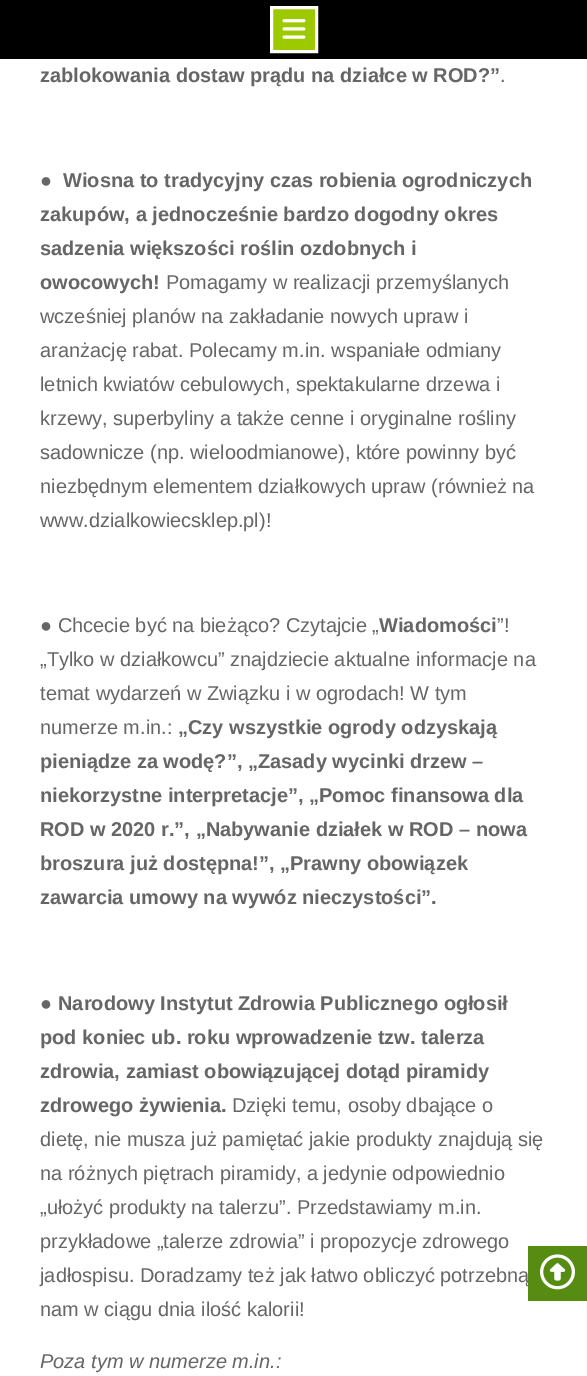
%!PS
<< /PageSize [587 1376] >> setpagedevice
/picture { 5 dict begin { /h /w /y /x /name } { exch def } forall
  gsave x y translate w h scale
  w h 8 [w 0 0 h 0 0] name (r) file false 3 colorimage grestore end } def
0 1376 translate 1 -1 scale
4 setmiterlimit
1 setgray
0 0 587 1376 rectfill
0 setgray
0 0 587 59 rectfill
0.612 0.788 0 setrgbcolor
newpath 271.5 7.5 moveto 316.5 7.5 lineto 316.5 51.5 lineto 271.5 51.5 lineto closepath gsave fill grestore
1 1 0.996 setrgbcolor
3 setlinewidth
stroke
(img1.rgb) 282 19 24 20 picture
/LiberationSans-Bold [20 0 0 -20 0 0] selectfont
0.4 setgray
40 82 moveto (zablokowania dostaw prądu na działce w ROD?”) show
/LiberationSans-Regular [20 0 0 -20 0 0] selectfont
500 82 moveto (.) show
40 187 moveto (●) show
/LiberationSans-Bold [20 0 0 -20 0 0] selectfont
63 187 moveto (Wiosna to tradycyjny czas robienia ogrodniczych) show
40 221 moveto (zakupów, a jednocześnie bardzo dogodny okres) show
40 255 moveto (sadzenia większości roślin ozdobnych i) show
40 289 moveto (owocowych!) show
/LiberationSans-Regular [20 0 0 -20 0 0] selectfont
166 289 moveto (Pomagamy w realizacji przemyślanych) show
40 323 moveto (wcześniej planów na zakładanie nowych upraw i) show
40 357 moveto (aranżację rabat. Polecamy m.in. wspaniałe odmiany) show
40 391 moveto (letnich kwiatów cebulowych, spektakularne drzewa i) show
40 425 moveto (krzewy, superbyliny a także cenne i oryginalne rośliny) show
40 459 moveto (sadownicze \(np. wieloodmianowe\), które powinny być) show
40 493 moveto (niezbędnym elementem działkowych upraw \(również na) show
40 527 moveto (www.dzialkowiecsklep.pl\)!) show
40 632 moveto (● Chcecie być na bieżąco? Czytajcie „) show
/LiberationSans-Bold [20 0 0 -20 0 0] selectfont
379 632 moveto (Wiadomości) show
/LiberationSans-Regular [20 0 0 -20 0 0] selectfont
497 632 moveto (”!) show
40 666 moveto („Tylko w działkowcu” znajdziecie aktualne informacje na) show
40 700 moveto (temat wydarzeń w Związku i w ogrodach! W tym) show
40 734 moveto (numerze m.in.:) show
/LiberationSans-Bold [20 0 0 -20 0 0] selectfont
178 734 moveto („Czy wszystkie ogrody odzyskają) show
40 768 moveto (pieniądze za wodę?”, „Zasady wycinki drzew –) show
40 802 moveto (niekorzystne interpretacje”, „Pomoc finansowa dla) show
40 836 moveto (ROD w 2020 r.”, „Nabywanie działek w ROD – nowa) show
40 870 moveto (broszura już dostępna!”, „Prawny obowiązek) show
40 904 moveto (zawarcia umowy na wywóz nieczystości”.) show
/LiberationSans-Regular [20 0 0 -20 0 0] selectfont
40 1010 moveto (●) show
/LiberationSans-Bold [20 0 0 -20 0 0] selectfont
58 1010 moveto (Narodowy Instytut Zdrowia Publicznego ogłosił) show
40 1044 moveto (pod koniec ub. roku wprowadzenie tzw. talerza) show
40 1078 moveto (zdrowia, zamiast obowiązującej dotąd piramidy) show
40 1112 moveto (zdrowego żywienia.) show
/LiberationSans-Regular [20 0 0 -20 0 0] selectfont
232 1112 moveto (Dzięki temu, osoby dbające o) show
40 1146 moveto (dietę, nie musza już pamiętać jakie produkty znajdują się) show
40 1180 moveto (na różnych piętrach piramidy, a jedynie odpowiednio) show
40 1214 moveto („ułożyć produkty na talerzu”. Przedstawiamy m.in.) show
40 1248 moveto (przykładowe „talerze zdrowia” i propozycje zdrowego) show
40 1282 moveto (jadłospisu. Doradzamy też jak łatwo obliczyć potrzebną) show
40 1316 moveto (nam w ciągu dnia ilość kalorii!) show
/LiberationSans-Italic [20 0 0 -20 0 0] selectfont
40 1368 moveto (Poza tym w numerze m.in.:) show
0.337 0.549 0.067 setrgbcolor
528 1246 59 55 rectfill
(img2.rgb) 540 1254 35 36 picture
showpage
